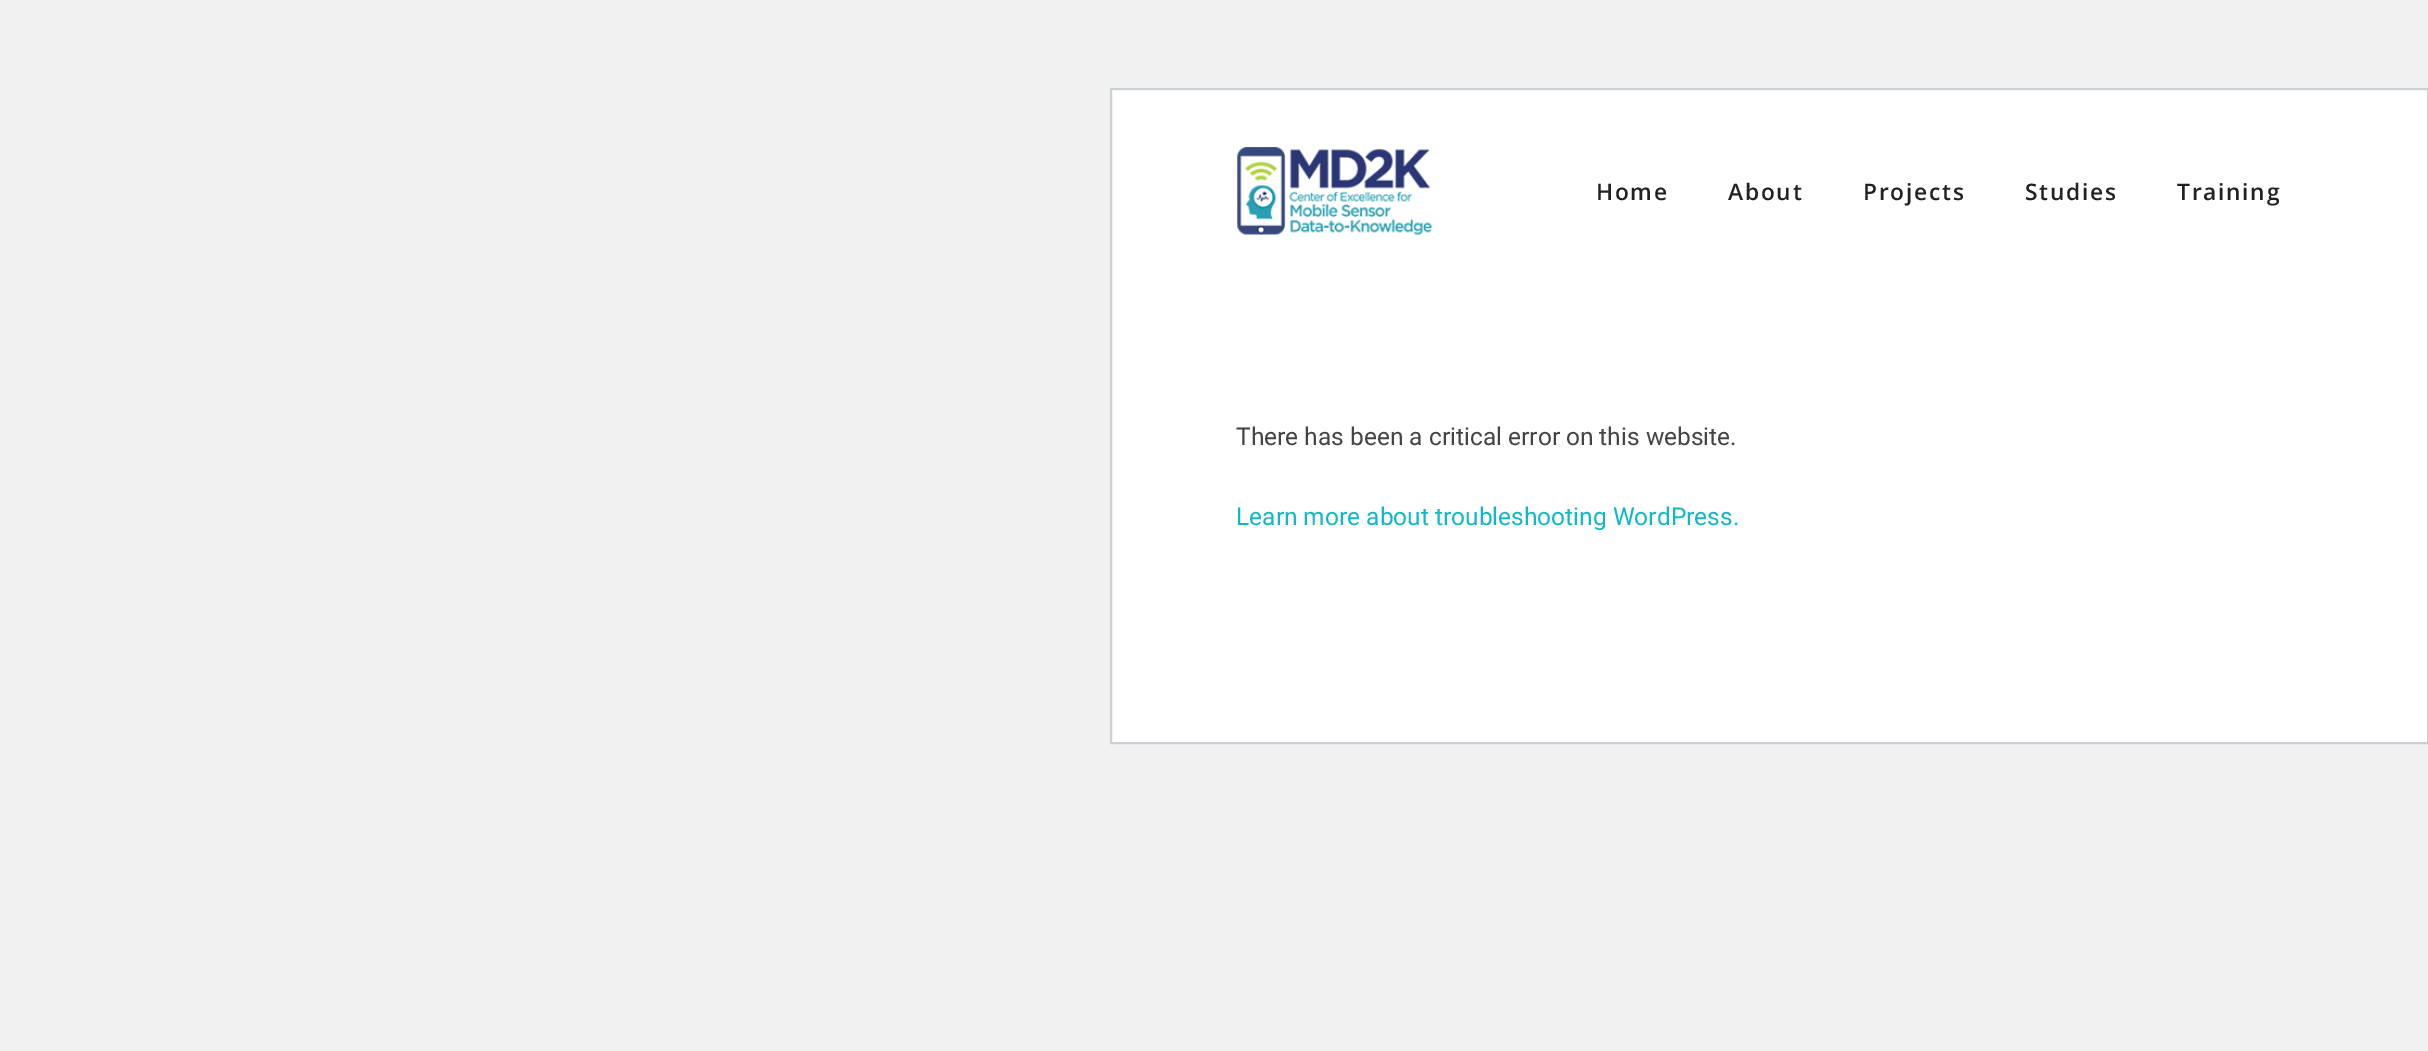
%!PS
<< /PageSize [2428 1051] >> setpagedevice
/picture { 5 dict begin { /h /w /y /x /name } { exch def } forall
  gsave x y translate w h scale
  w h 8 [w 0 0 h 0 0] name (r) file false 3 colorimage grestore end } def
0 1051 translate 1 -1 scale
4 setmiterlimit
0.945 setgray
0 0 2428 1051 rectfill
1 setgray
newpath 1111 89 moveto 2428 89 lineto 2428 743 lineto 1111 743 lineto closepath gsave fill grestore
0.8 0.816 0.831 setrgbcolor
2 setlinewidth
stroke
(img1.rgb) 1237 147 195 88 picture
/OpenSans-SemiBold [22.75 0 0 -22.75 0 0] selectfont
0.133 setgray
1596 200 moveto 1.75 0 (Home) ashow
1728 200 moveto 1.75 0 (About) ashow
1863 200 moveto 1.75 0 (Projects) ashow
2025 200 moveto 1.75 0 (Studies) ashow
2177 200 moveto 1.75 0 (Training) ashow
/Roboto-Regular [24.5 0 0 -24.5 0 0] selectfont
0.267 setgray
1236 445 moveto (There has been a critical error on this website.) show
0.063 0.722 0.78 setrgbcolor
1236 525 moveto (Learn more about troubleshooting WordPress.) show
showpage
